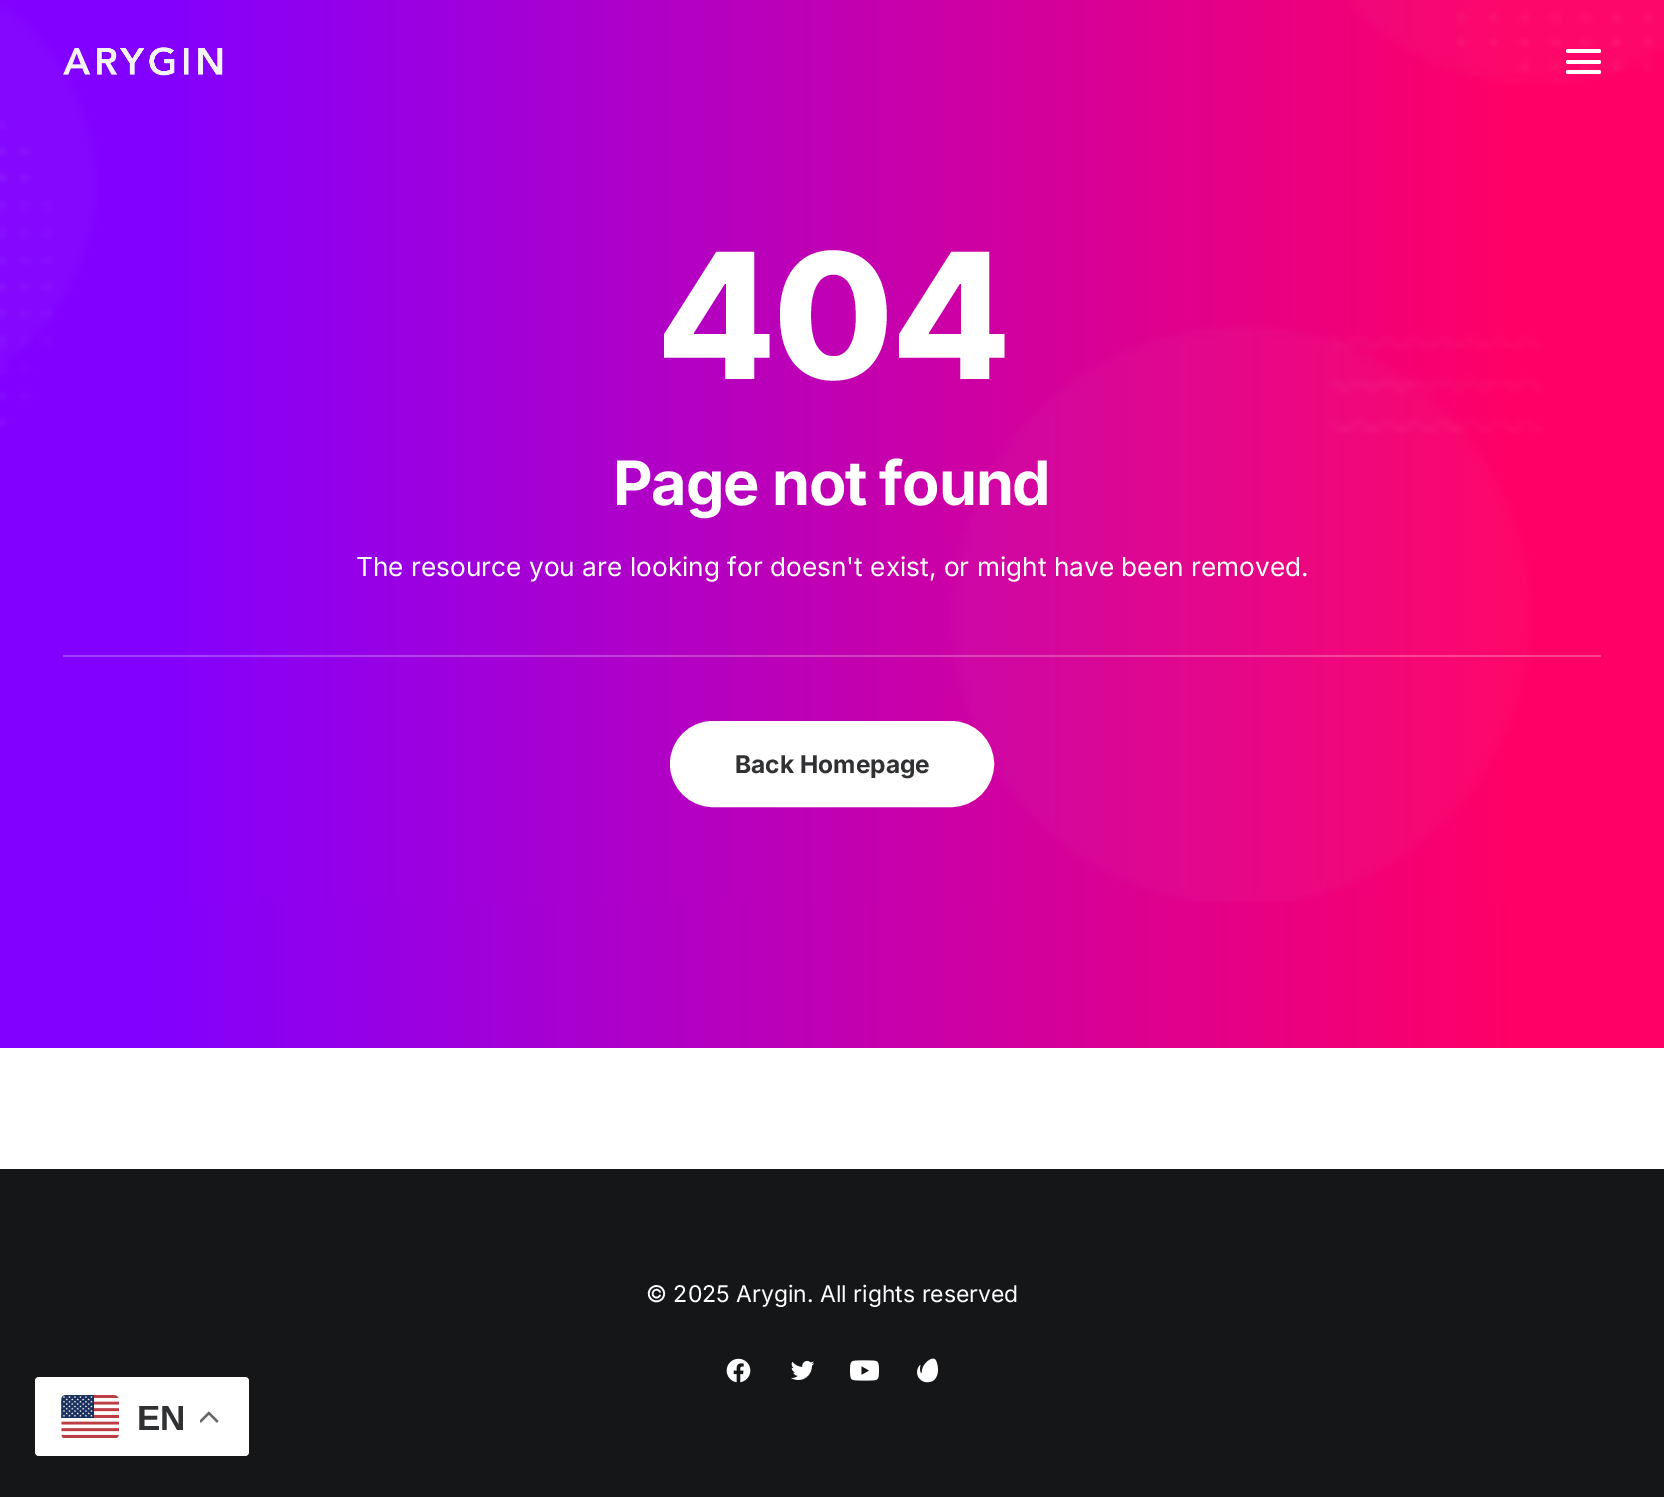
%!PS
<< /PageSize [1664 1497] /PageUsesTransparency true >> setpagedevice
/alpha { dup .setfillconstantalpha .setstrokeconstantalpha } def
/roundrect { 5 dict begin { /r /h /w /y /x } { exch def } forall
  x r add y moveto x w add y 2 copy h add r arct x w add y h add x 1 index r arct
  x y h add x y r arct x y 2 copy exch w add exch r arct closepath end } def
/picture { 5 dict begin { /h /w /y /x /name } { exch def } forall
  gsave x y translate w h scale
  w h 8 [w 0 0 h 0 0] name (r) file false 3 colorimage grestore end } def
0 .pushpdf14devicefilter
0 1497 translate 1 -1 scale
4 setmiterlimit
0.078 0.086 0.094 setrgbcolor
0 0 1664 1497 rectfill
gsave newpath 0 0 moveto 1664 0 lineto 1664 1048 lineto 0 1048 lineto closepath clip newpath
<< /ShadingType 2 /ColorSpace /DeviceRGB /Coords [0 524 1664 524] /Extend [true true] /Function << /FunctionType 3 /Domain [0 1] /Functions [<< /FunctionType 2 /Domain [0 1] /C0 [0.51 0 1] /C1 [0.51 0 1] /N 1 >> << /FunctionType 2 /Domain [0 1] /C0 [0.51 0 1] /C1 [1 0 0.4] /N 1 >> << /FunctionType 2 /Domain [0 1] /C0 [1 0 0.4] /C1 [1 0 0.4] /N 1 >>] /Bounds [0.09 0.91] /Encode [0 1 0 1 0 1] >> >> shfill grestore
(img2.rgb) 0 0 1664 902 picture
(img1.rgb) 63 47 160 29 picture
1 setgray
1566 60 35 4 2 roundrect fill
1566 49 35 4 2 roundrect fill
1566 70 35 4 2 roundrect fill
/Inter-ExtraBold [175 0 0 -175 0 0] selectfont
656 379 moveto -3.5 0 (404) ashow
/Inter-Bold [61.25 0 0 -61.25 0 0] selectfont
613 505 moveto -1.25 0 (Page not found) ashow
/Inter-Regular [26.25 0 0 -26.25 0 0] selectfont
356 576 moveto (The resource you are looking for doesn't exist, or might have been removed.) show
0.25 alpha
63 655 1538 2 rectfill
1 alpha
671 722 322 84 42 roundrect gsave fill grestore
2 setlinewidth
stroke
/Inter-Bold [24.5 0 0 -24.5 0 0] selectfont
0.188 0.192 0.2 setrgbcolor
735 773 moveto (Back Homepage) show
1 setgray
0 1048 1664 121 rectfill
/Inter-Regular [23 0 0 -23 0 0] selectfont
646 1302 moveto (© 2025 Arygin. All rights reserved) show
(img3.rgb) 726 1358 25 25 picture
(img4.rgb) 791 1360 24 20 picture
(img5.rgb) 850 1360 29 21 picture
(img6.rgb) 917 1358 21 25 picture
35 1377 214 79 4 roundrect fill
(img7.rgb) 61 1395 58 43 picture
/LiberationSans-Bold [35 0 0 -35 0 0] selectfont
0.188 0.192 0.2 setrgbcolor
137 1430 moveto (EN) show
(img8.rgb) 200 1411 19 12 picture
.poppdf14devicefilter showpage
